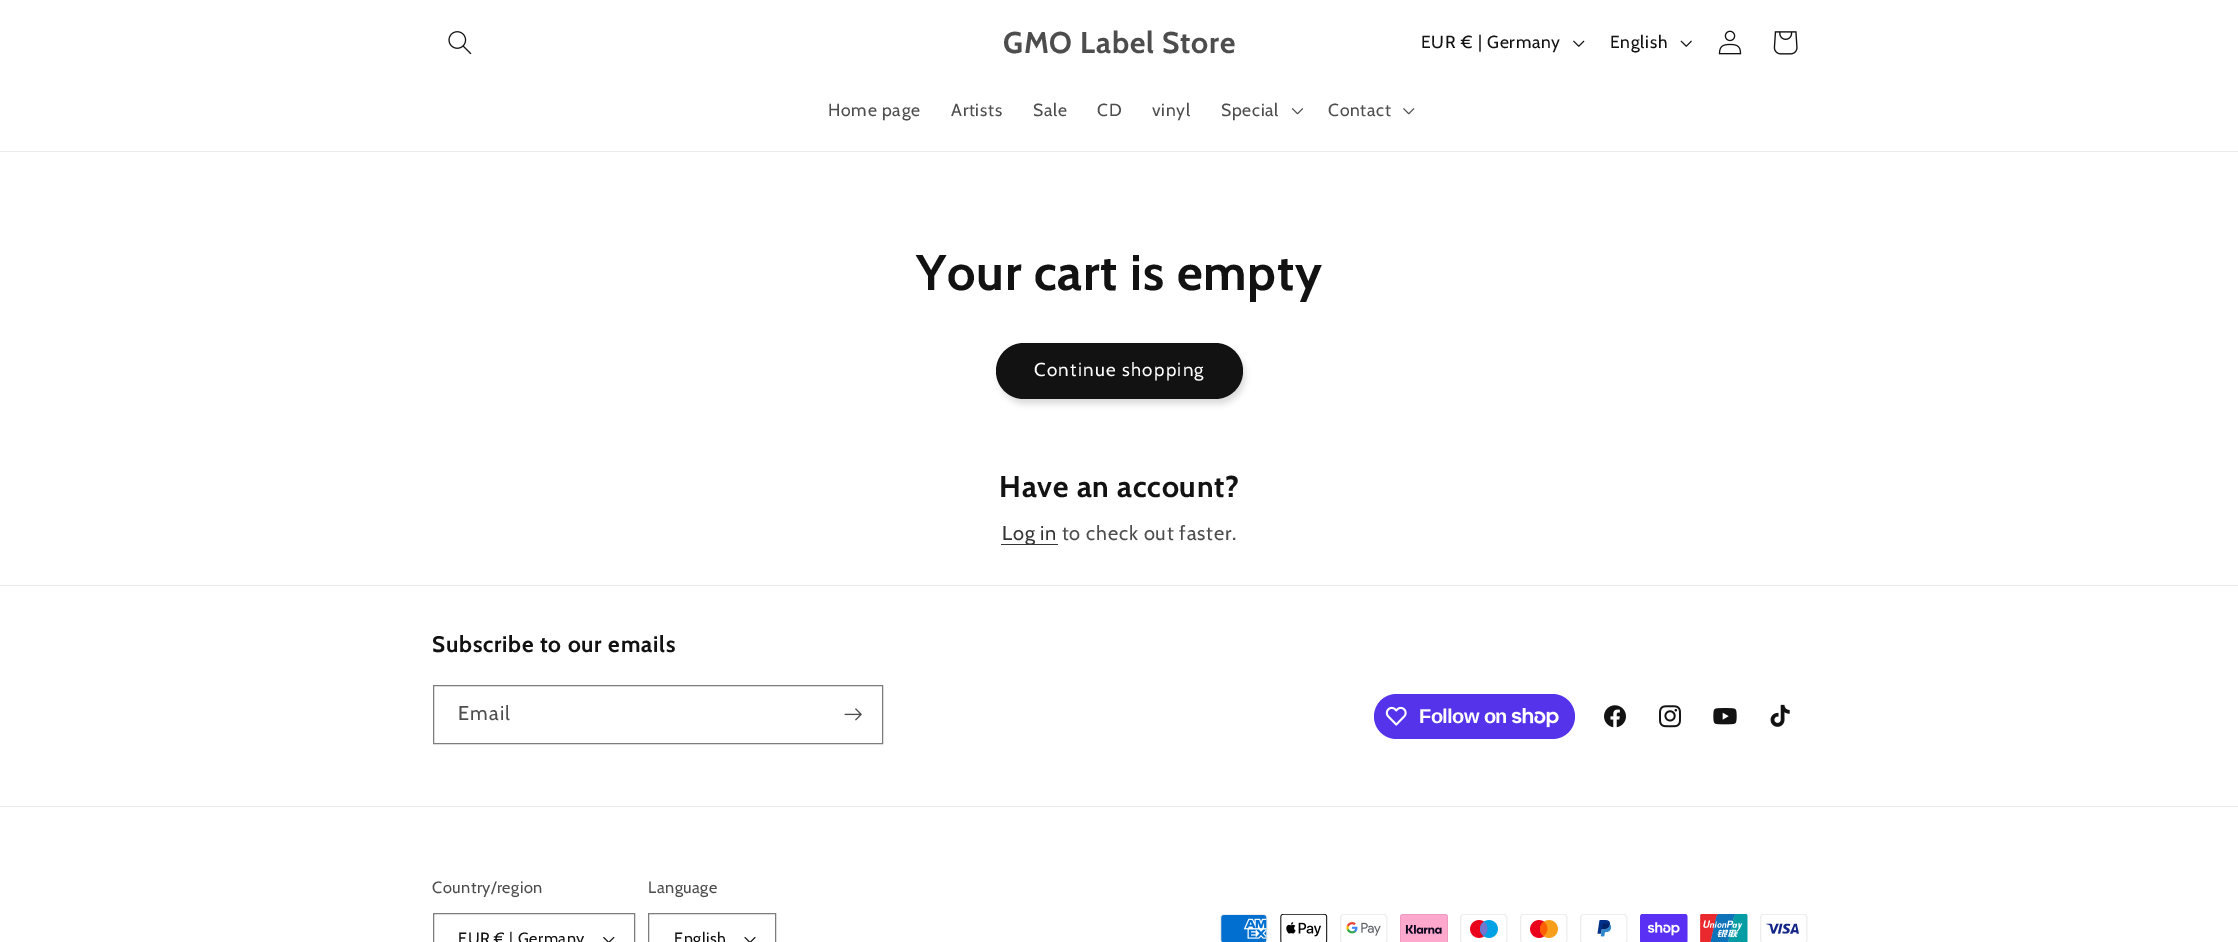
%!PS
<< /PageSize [2238 942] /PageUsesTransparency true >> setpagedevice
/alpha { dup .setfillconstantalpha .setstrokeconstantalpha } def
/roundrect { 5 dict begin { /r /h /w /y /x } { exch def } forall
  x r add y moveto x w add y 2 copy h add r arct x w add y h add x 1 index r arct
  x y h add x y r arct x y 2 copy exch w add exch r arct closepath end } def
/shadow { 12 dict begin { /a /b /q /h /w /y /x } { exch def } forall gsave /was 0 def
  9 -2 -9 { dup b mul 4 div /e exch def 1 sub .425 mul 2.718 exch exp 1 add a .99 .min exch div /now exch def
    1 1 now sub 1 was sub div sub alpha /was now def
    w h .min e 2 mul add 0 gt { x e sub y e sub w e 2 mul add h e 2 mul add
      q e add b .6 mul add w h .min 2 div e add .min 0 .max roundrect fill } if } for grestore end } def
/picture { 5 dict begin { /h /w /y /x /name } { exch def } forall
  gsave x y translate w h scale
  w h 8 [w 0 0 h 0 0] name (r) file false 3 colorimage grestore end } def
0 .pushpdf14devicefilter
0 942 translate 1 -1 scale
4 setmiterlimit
1 setgray
0 0 2238 942 rectfill
0.925 setgray
0 151 2238 1 rectfill
(img1.rgb) 448 31 24 24 picture
/Cabin-Bold [30 0 0 -30 0 0] selectfont
0.302 setgray
1003 53 moveto 0.75 0 (GMO Label Store) ashow
/Cabin-Regular [17.5 0 0 -17.5 0 0] selectfont
0.071 setgray
1421 48 moveto 0.75 0 (EUR € | Germany) ashow
(img2.rgb) 1573 40 12 7 picture
1610 48 moveto 0.75 0 (English) ashow
(img3.rgb) 1680 40 12 7 picture
(img4.rgb) 1718 30 24 25 picture
(img5.rgb) 1773 31 25 24 picture
0.302 setgray
828 116 moveto 0.75 0 (Home page) ashow
951 116 moveto 0.75 0 (Artists) ashow
1033 116 moveto 0.75 0 (Sale) ashow
1097 116 moveto 0.75 0 (CD) ashow
1152 116 moveto 0.75 0 (vinyl) ashow
1221 116 moveto 0.75 0 (Special) ashow
(img6.rgb) 1291 108 13 7 picture
1328 116 moveto 0.75 0 (Contact) ashow
(img7.rgb) 1403 108 12 7 picture
/Cabin-Bold [50 0 0 -50 0 0] selectfont
0.071 setgray
916 290 moveto 0.75 0 (Your cart is empty) ashow
999 348 246 56 28 3 0.15 shadow
996 343 247 56 28 roundrect fill
/Cabin-Regular [18.75 0 0 -18.75 0 0] selectfont
1 setgray
1034 376 moveto 1.25 0 (Continue shopping) ashow
/Cabin-Bold [30 0 0 -30 0 0] selectfont
0.071 setgray
999 497 moveto 0.75 0 (Have an account?) ashow
0.212 setgray
1001 544 57 1 rectfill
/Cabin-Regular [20 0 0 -20 0 0] selectfont
0.208 setgray
1002 540 moveto 0.75 0 (Log in) ashow
0.302 setgray
1062 540 moveto 0.75 0 (to check out faster.) ashow
0.925 setgray
0 585 2238 1 rectfill
/Cabin-Bold [22.5 0 0 -22.5 0 0] selectfont
0.071 setgray
432 652 moveto 0.75 0 (Subscribe to our emails) ashow
0.49 setgray
433.5 685.5 449 58 rectstroke
/Cabin-Regular [20 0 0 -20 0 0] selectfont
0.302 setgray
458 720 moveto 1.25 0 (Email) ashow
(img8.rgb) 844 708 18 13 picture
0.329 0.2 0.922 setrgbcolor
1374 694 201 45 22.5 roundrect fill
(img9.rgb) 1385 706 22 20 picture
/LiberationSans-Bold [20 0 0 -20 0 0] selectfont
1 setgray
1419 723 moveto -0.6 0 (Follow on) ashow
(img10.rgb) 1511 708 48 20 picture
(img11.rgb) 1604 705 22 23 picture
(img12.rgb) 1659 705 22 23 picture
(img13.rgb) 1713 708 24 17 picture
(img14.rgb) 1770 704 20 23 picture
0.925 setgray
0 806 2238 1 rectfill
/Cabin-Regular [16.25 0 0 -16.25 0 0] selectfont
0.302 setgray
432 893 moveto 0.5 0 (Country/region) ashow
(img15.rgb) 603 936 12 6 picture
0.49 setgray
433.5 913.5 201 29 rectstroke
0.071 setgray
458 944 moveto 0.5 0 (EUR € | Germany) ashow
0.302 setgray
648 893 moveto 0.5 0 (Language) ashow
(img16.rgb) 744 937 12 5 picture
0.49 setgray
648.5 913.5 127 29 rectstroke
0.071 setgray
674 944 moveto 0.5 0 (English) ashow
(img17.rgb) 1220 914 48 28 picture
(img18.rgb) 1280 914 48 28 picture
(img19.rgb) 1340 914 48 28 picture
(img20.rgb) 1400 914 48 28 picture
(img21.rgb) 1460 914 48 28 picture
(img22.rgb) 1520 914 48 28 picture
(img23.rgb) 1580 914 48 28 picture
(img24.rgb) 1640 914 48 28 picture
(img25.rgb) 1700 914 48 28 picture
(img26.rgb) 1760 914 48 28 picture
.poppdf14devicefilter showpage
